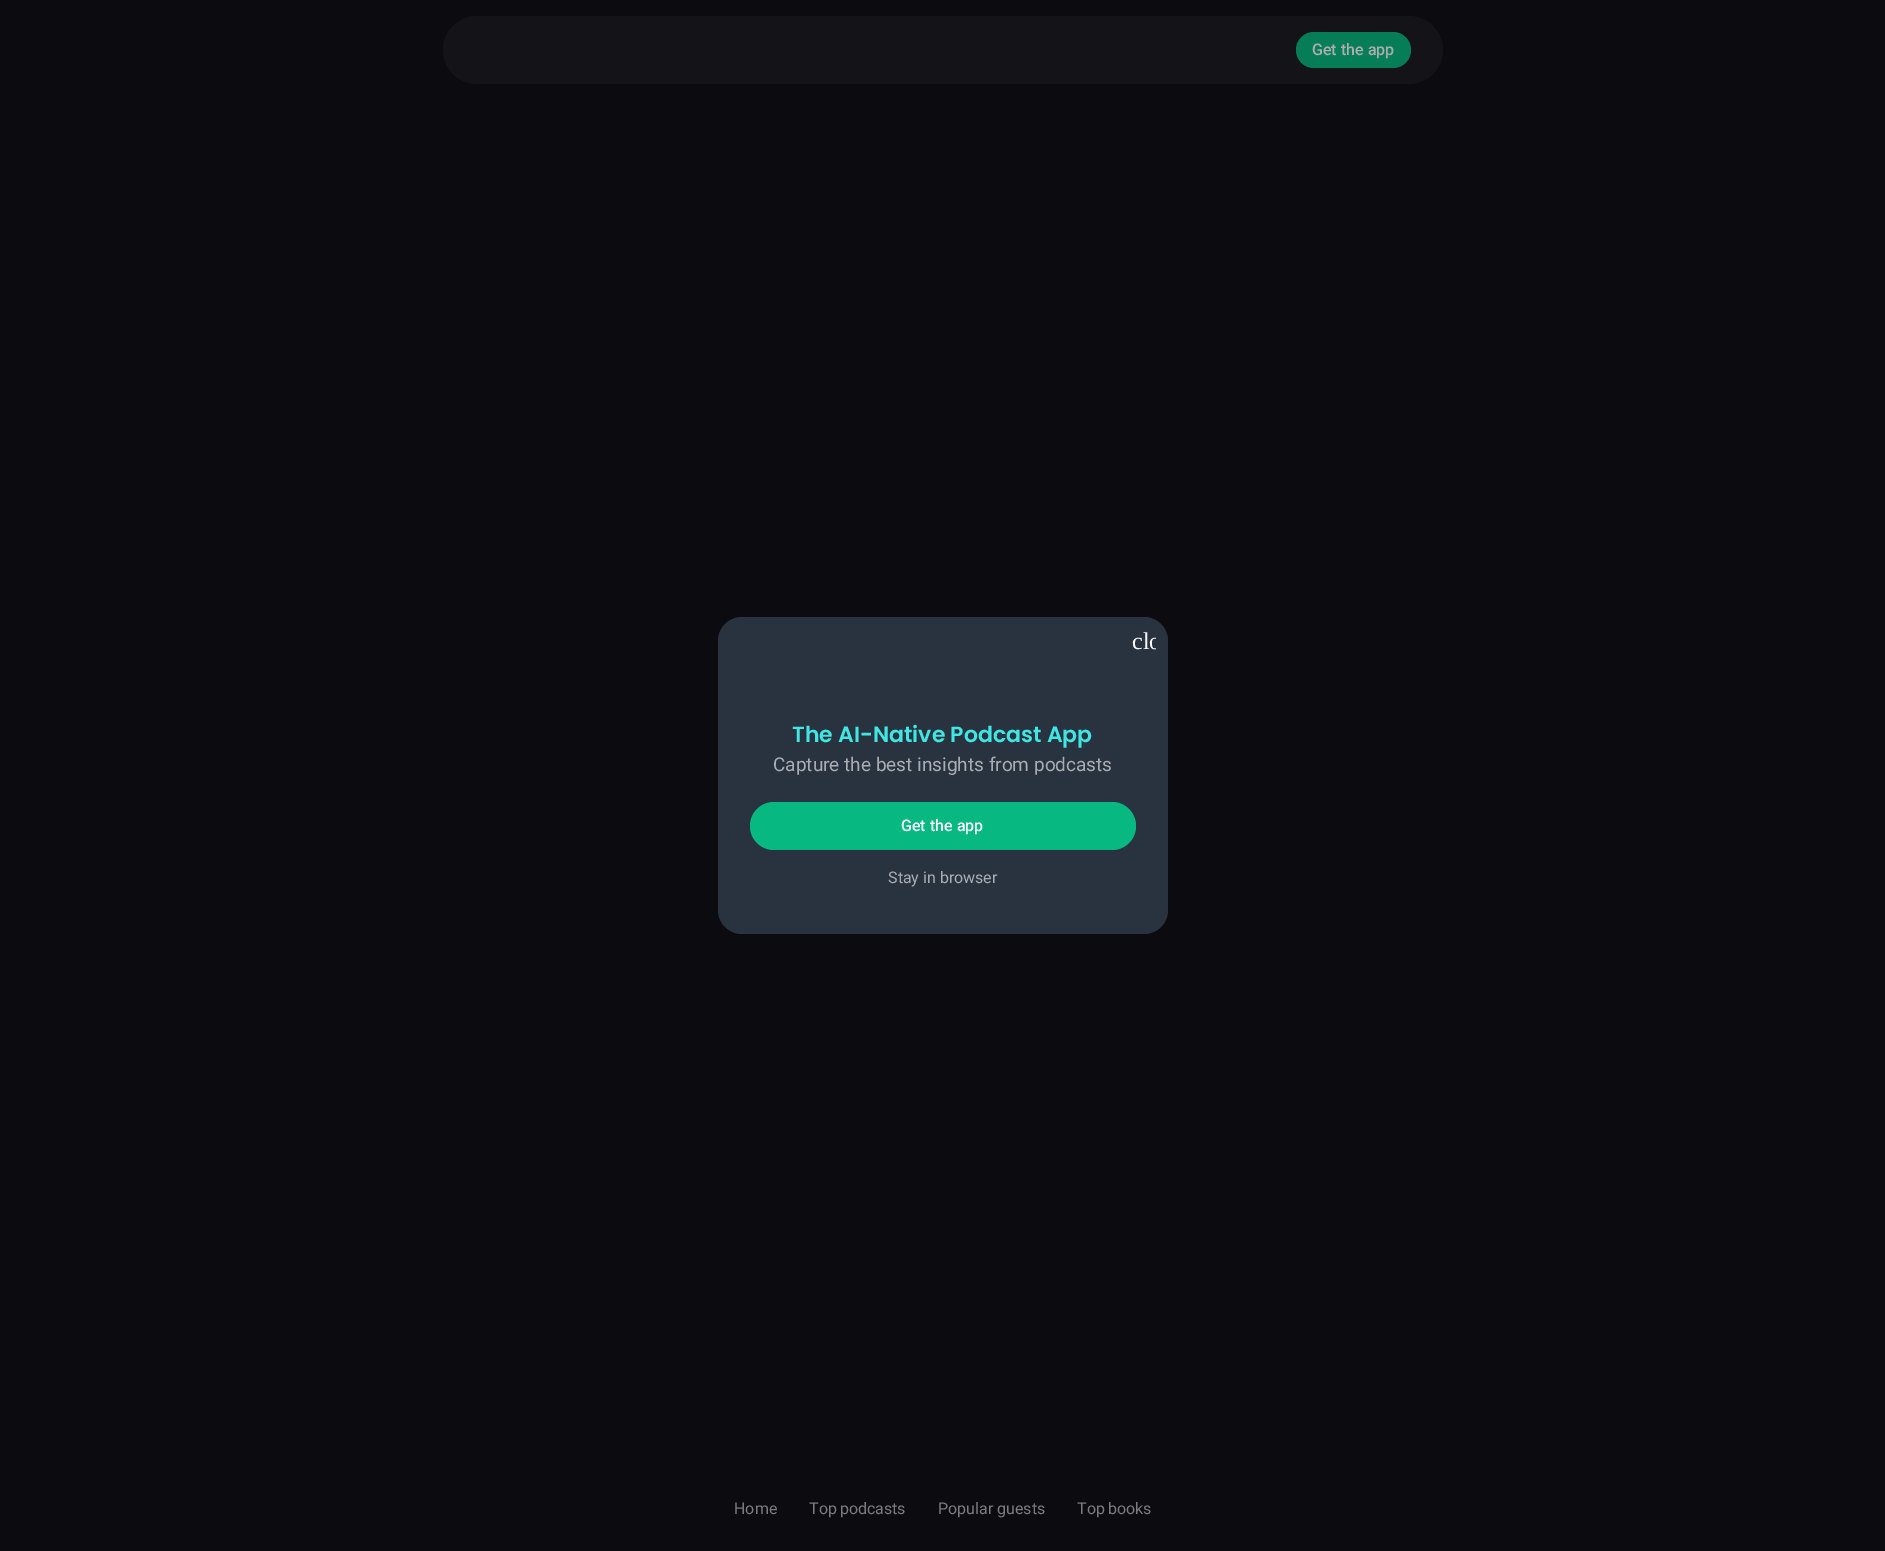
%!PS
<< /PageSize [1885 1551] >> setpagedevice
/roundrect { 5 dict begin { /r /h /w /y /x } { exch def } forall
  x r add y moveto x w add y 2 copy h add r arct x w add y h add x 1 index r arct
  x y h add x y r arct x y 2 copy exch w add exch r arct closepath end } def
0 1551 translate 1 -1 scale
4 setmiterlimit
0.043 0.043 0.063 setrgbcolor
0 0 1885 1551 rectfill
0.075 0.075 0.094 setrgbcolor
443 16 1000 68 34 roundrect fill
0.02 0.494 0.345 setrgbcolor
1296 32 115 36 18 roundrect fill
/Roboto-Medium [16 0 0 -16 0 0] selectfont
0.678 setgray
1312 55 moveto (Get the app) show
/Roboto-Regular [16 0 0 -16 0 0] selectfont
0.486 0.486 0.494 setrgbcolor
734 1514 moveto (Home) show
809 1514 moveto -1 0 32 (Top podcasts) widthshow
938 1514 moveto (Popular guests) show
1077 1514 moveto -1 0 32 (Top books) widthshow
0.161 0.2 0.251 setrgbcolor
718 617 450 317 24 roundrect fill
gsave
1132 629 24 24 rectclip
/LiberationSerif-Regular [24 0 0 -24 0 0] selectfont
0.973 0.976 1 setrgbcolor
1132 649 moveto (clo) show
grestore
/Poppins-SemiBold [22 0 0 -22 0 0] selectfont
0.255 0.898 0.886 setrgbcolor
792 742 moveto (The AI-Native Podcast App) show
/Roboto-Regular [19 0 0 -19 0 0] selectfont
0.663 0.678 0.702 setrgbcolor
773 771 moveto (Capture the best insights from podcasts) show
0.027 0.725 0.506 setrgbcolor
750 802 386 48 24 roundrect fill
/Roboto-Medium [16 0 0 -16 0 0] selectfont
1 setgray
901 831 moveto (Get the app) show
/Roboto-Regular [16 0 0 -16 0 0] selectfont
0.663 0.678 0.702 setrgbcolor
888 883 moveto (Stay in browser) show
showpage
